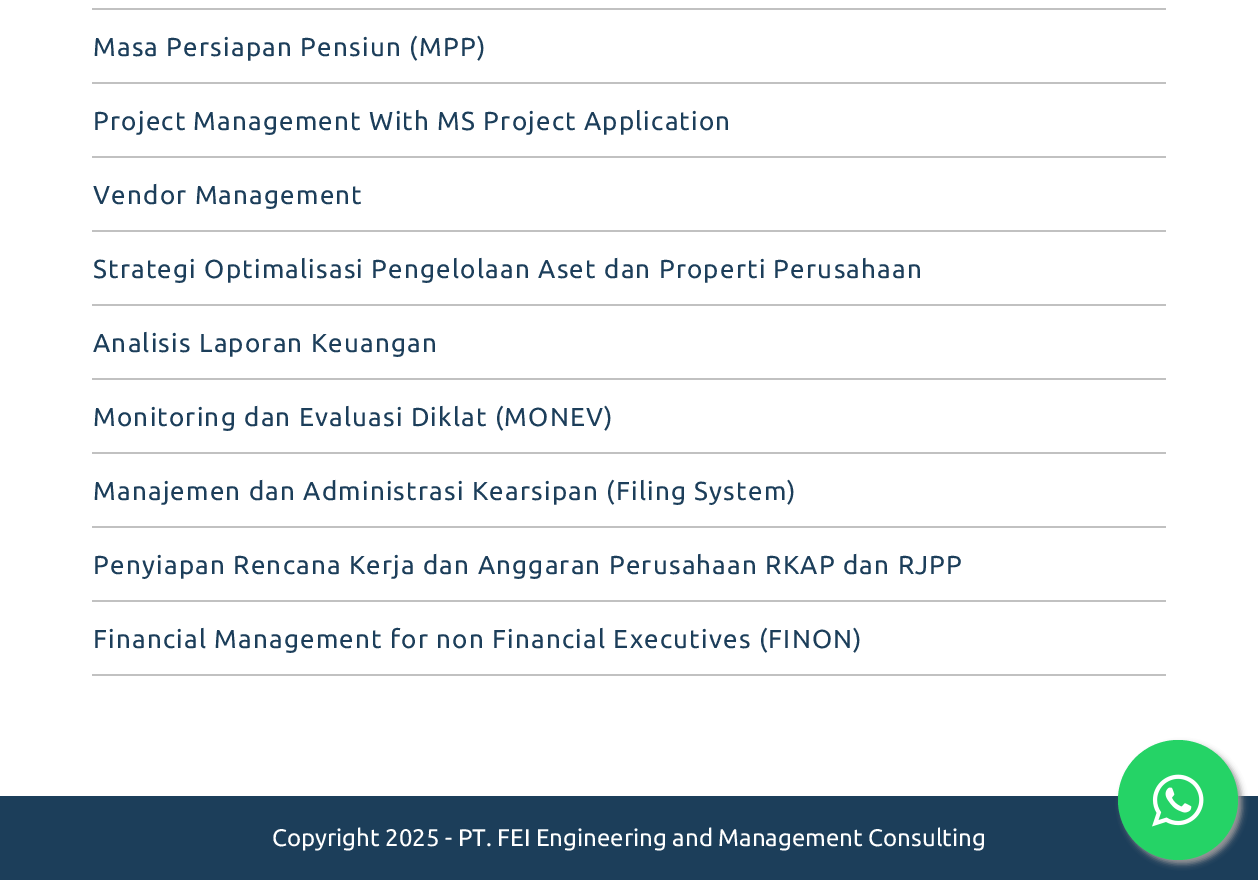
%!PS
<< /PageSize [1258 880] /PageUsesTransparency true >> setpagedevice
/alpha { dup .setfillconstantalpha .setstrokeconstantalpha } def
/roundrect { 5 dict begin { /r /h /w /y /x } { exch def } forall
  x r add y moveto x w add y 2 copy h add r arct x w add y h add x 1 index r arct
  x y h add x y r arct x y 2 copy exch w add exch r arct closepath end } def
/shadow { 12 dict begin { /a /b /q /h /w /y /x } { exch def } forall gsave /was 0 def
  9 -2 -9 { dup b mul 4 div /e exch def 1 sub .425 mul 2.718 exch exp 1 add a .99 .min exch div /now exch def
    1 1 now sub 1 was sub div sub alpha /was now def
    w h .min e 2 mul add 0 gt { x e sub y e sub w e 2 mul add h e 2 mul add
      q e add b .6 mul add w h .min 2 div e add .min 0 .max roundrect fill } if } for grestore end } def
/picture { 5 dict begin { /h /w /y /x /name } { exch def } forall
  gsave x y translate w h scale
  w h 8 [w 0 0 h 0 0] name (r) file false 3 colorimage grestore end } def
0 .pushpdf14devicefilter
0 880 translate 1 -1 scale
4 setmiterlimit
1 setgray
0 0 1258 880 rectfill
0.757 setgray
92 8 1074 2 rectfill
92 82 1074 2 rectfill
/Ubuntu-Regular [26 0 0 -26 0 0] selectfont
0.11 0.243 0.353 setrgbcolor
93 56 moveto 1.2 0 (Masa Persiapan Pensiun \(MPP\)) ashow
0.757 setgray
92 156 1074 2 rectfill
0.11 0.243 0.353 setrgbcolor
93 130 moveto 1.2 0 (Project Management With MS Project Application) ashow
0.757 setgray
92 230 1074 2 rectfill
0.11 0.243 0.353 setrgbcolor
93 204 moveto 1.2 0 (Vendor Management) ashow
0.757 setgray
92 304 1074 2 rectfill
0.11 0.243 0.353 setrgbcolor
93 278 moveto 1.2 0 (Strategi Optimalisasi Pengelolaan Aset dan Properti Perusahaan) ashow
0.757 setgray
92 378 1074 2 rectfill
0.11 0.243 0.353 setrgbcolor
93 352 moveto 1.2 0 (Analisis Laporan Keuangan) ashow
0.757 setgray
92 452 1074 2 rectfill
0.11 0.243 0.353 setrgbcolor
93 426 moveto 1.2 0 (Monitoring dan Evaluasi Diklat \(MONEV\)) ashow
0.757 setgray
92 526 1074 2 rectfill
0.11 0.243 0.353 setrgbcolor
93 500 moveto 1.2 0 (Manajemen dan Administrasi Kearsipan \(Filing System\)) ashow
0.757 setgray
92 600 1074 2 rectfill
0.11 0.243 0.353 setrgbcolor
93 574 moveto 1.2 0 (Penyiapan Rencana Kerja dan Anggaran Perusahaan RKAP dan RJPP) ashow
0.757 setgray
92 674 1074 2 rectfill
0.11 0.243 0.353 setrgbcolor
93 648 moveto 1.2 0 (Financial Management for non Financial Executives \(FINON\)) ashow
0 796 1258 84 rectfill
/Ubuntu-Regular [24 0 0 -24 0 0] selectfont
1 setgray
272 846 moveto (Copyright 2025 - PT. FEI Engineering and Management Consulting) show
0.6 setgray
1122 744 120 120 60 3 1 shadow
0.145 0.827 0.4 setrgbcolor
newpath 1178 800 60 0 360 arc closepath fill
(img1.rgb) 1152 774 52 53 picture
.poppdf14devicefilter showpage
